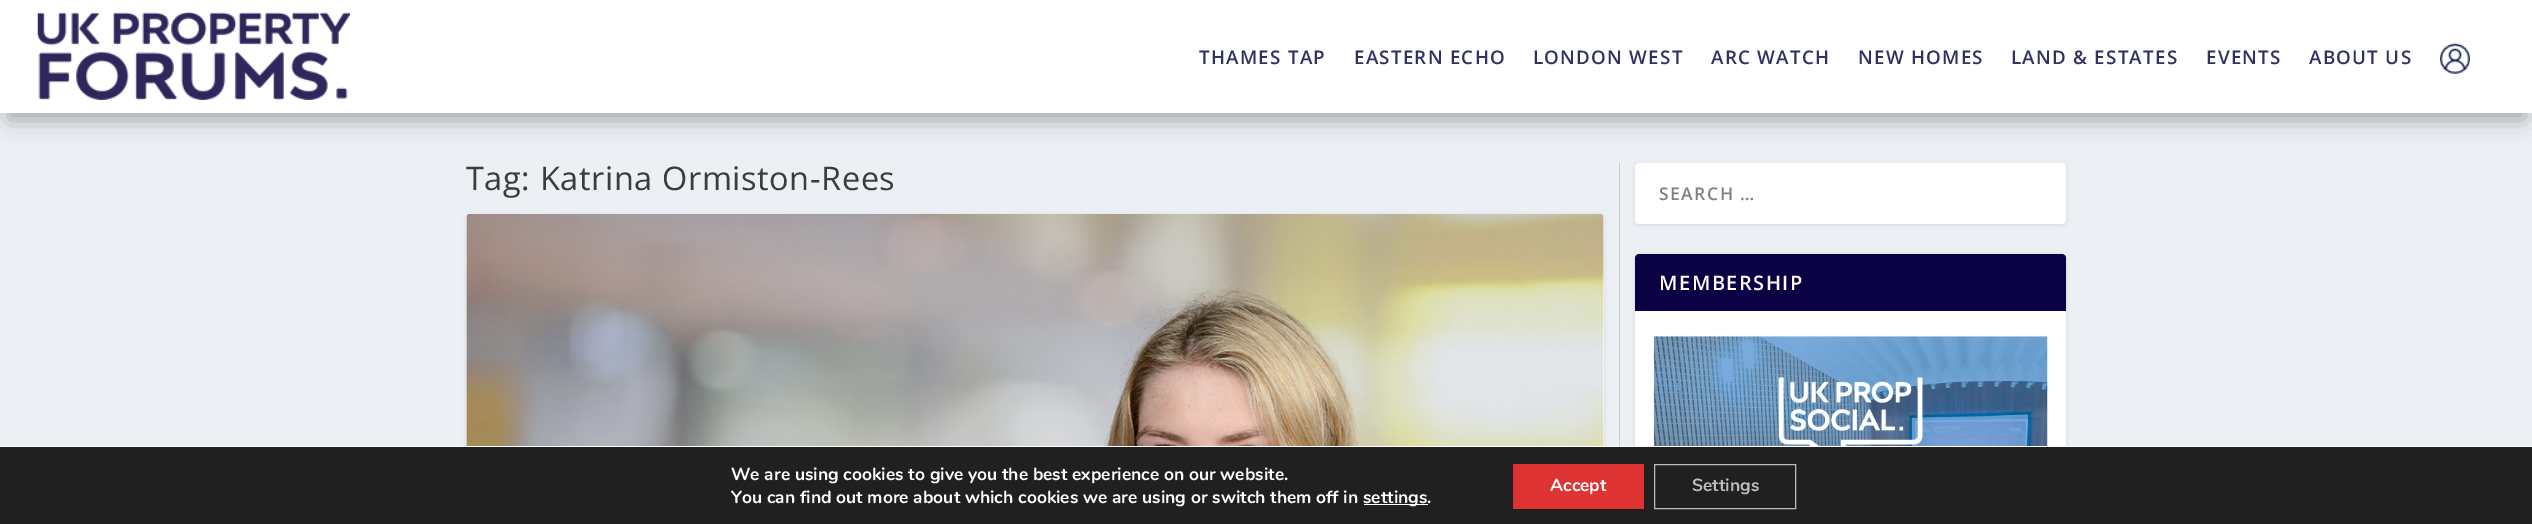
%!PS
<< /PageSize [2532 524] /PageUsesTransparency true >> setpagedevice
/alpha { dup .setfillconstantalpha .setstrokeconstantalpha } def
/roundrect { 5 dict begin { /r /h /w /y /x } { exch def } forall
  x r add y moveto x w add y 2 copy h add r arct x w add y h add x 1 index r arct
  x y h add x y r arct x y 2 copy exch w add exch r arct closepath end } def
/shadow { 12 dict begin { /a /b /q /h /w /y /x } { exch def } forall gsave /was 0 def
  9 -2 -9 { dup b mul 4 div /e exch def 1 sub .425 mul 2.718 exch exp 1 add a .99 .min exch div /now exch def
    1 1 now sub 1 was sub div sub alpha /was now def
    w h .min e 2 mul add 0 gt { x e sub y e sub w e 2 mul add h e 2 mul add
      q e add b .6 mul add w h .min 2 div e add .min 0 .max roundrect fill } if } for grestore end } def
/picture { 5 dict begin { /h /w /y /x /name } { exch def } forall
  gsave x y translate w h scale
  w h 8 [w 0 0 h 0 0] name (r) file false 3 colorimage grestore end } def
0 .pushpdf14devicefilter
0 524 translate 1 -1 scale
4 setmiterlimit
0.925 0.941 0.961 setrgbcolor
0 0 2532 524 rectfill
0 setgray
8 23 2517 97 0 11 0.3 shadow
1 setgray
0 0 2532 113 rectfill
(img1.rgb) 37 12 313 88 picture
/OpenSans-SemiBold [18.75 0 0 -18.75 0 0] selectfont
0.188 0.188 0.384 setrgbcolor
1199 64 moveto 1.25 0 (THAMES TAP) ashow
1354 64 moveto 1.25 0 (EASTERN ECHO) ashow
1533 64 moveto 1.25 0 (LONDON WEST) ashow
1711 64 moveto 1.25 0 (ARC WATCH) ashow
1858 64 moveto 1.25 0 (NEW HOMES) ashow
2011 64 moveto 1.25 0 (LAND & ESTATES) ashow
2206 64 moveto 1.25 0 (EVENTS) ashow
2309 64 moveto 1.25 0 (ABOUT US) ashow
(img2.rgb) 2440 43 30 31 picture
/OpenSans-Regular [32.5 0 0 -32.5 0 0] selectfont
0.231 0.235 0.239 setrgbcolor
466 190 moveto 0.6 0 (Tag: Katrina Ormiston-Rees) ashow
0 setgray
466 215 1138 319 4 2 0.1 shadow
1 setgray
466 214 1138 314 4 roundrect fill
(img3.rgb) 466 214 1138 232 picture
0.8 setgray
1619 163 1 283 rectfill
0 setgray
1635 164 431 61 4 2 0.1 shadow
1 setgray
1635 163 431 61 4 roundrect fill
/OpenSans-SemiBold [17.5 0 0 -17.5 0 0] selectfont
0.502 setgray
1659 200 moveto 1.5 0 (SEARCH …) ashow
0 setgray
1635 255 431 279 4 2 0.1 shadow
1 setgray
1635 254 431 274 4 roundrect fill
0.035 0.004 0.267 setrgbcolor
newpath 1639 254 moveto 2062 254 lineto 2064 254 2066 256 2066 258 curveto 2066 311 lineto 1635 311 lineto 1635 258 lineto 1635 256 1637 254 1639 254 curveto closepath fill
/OpenSans-SemiBold [20 0 0 -20 0 0] selectfont
1 setgray
1659 290 moveto 1.5 0 (MEMBERSHIP) ashow
(img4.rgb) 1653 336 395 110 picture
0.125 setgray
0 447 2532 77 rectfill
1 setgray
0 446 2532 1 rectfill
/Nunito-Bold [17.5 0 0 -17.5 0 0] selectfont
731 480 moveto (We are using cookies to give you the best experience on our website.) show
731 503 moveto (You can find out more about which cookies we are using or switch them off in) show
1364 504 64 1 rectfill
1363 503 moveto (settings.) show
0.867 0.2 0.2 setrgbcolor
1513 464 131 45 rectfill
1 setgray
1550 491 moveto (Accept) show
0.737 setgray
1654.5 464.5 141 44 rectstroke
1692 491 moveto (Settings) show
.poppdf14devicefilter showpage
